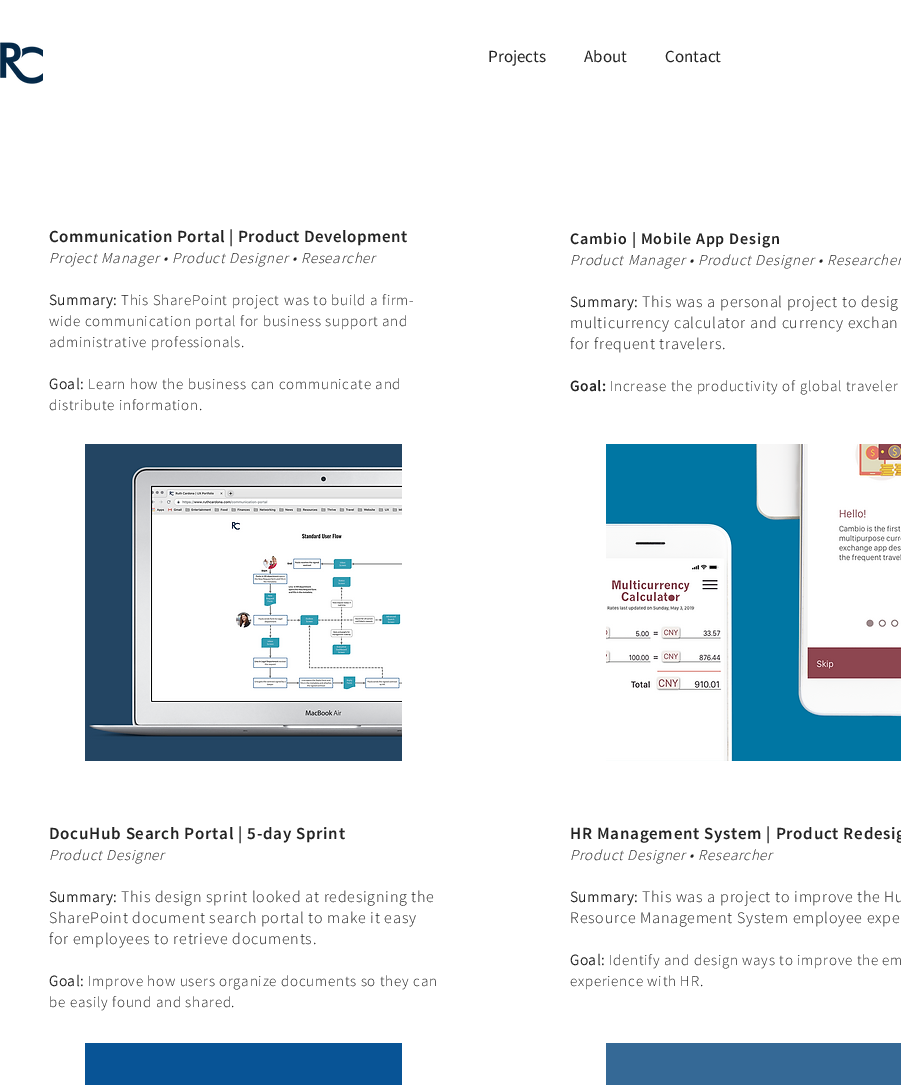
%!PS
<< /PageSize [901 1085] >> setpagedevice
/picture { 5 dict begin { /h /w /y /x /name } { exch def } forall
  gsave x y translate w h scale
  w h 8 [w 0 0 h 0 0] name (r) file false 3 colorimage grestore end } def
0 1085 translate 1 -1 scale
4 setmiterlimit
1 setgray
0 0 901 1085 rectfill
(img1.rgb) 0 42 43 42 picture
/SourceSansPro-Regular [17 0 0 -17 0 0] selectfont
0.133 setgray
488 62 moveto (Projects) show
584 62 moveto (About) show
665 62 moveto (Contact) show
/SourceSansPro-SemiBold [17 0 0 -17 0 0] selectfont
49 242 moveto 0.5 0 (Communication Portal | Product Development) ashow
/SourceSansPro-LightItalic [15 0 0 -15 0 0] selectfont
49 263 moveto 0.75 0 (Project Manager • Product Designer • Researcher) ashow
/SourceSansPro-Bold [15 0 0 -15 0 0] selectfont
49 305 moveto 0.75 0 (Summary:) ashow
/SourceSansPro-Light [15 0 0 -15 0 0] selectfont
121 305 moveto 0.75 0 (This SharePoint project was to build a firm-) ashow
49 326 moveto 0.75 0 (wide communication portal for business support and) ashow
49 347 moveto 0.75 0 (administrative professionals.) ashow
/SourceSansPro-Bold [15 0 0 -15 0 0] selectfont
49 389 moveto 0.75 0 (Goal:) ashow
/SourceSansPro-Light [15 0 0 -15 0 0] selectfont
88 389 moveto 0.75 0 (Learn how the business can communicate and) ashow
49 410 moveto 0.75 0 (distribute information.) ashow
/SourceSansPro-SemiBold [16 0 0 -16 0 0] selectfont
570 244 moveto 0.8 0 (Cambio | Mobile App Design) ashow
/SourceSansPro-LightItalic [15 0 0 -15 0 0] selectfont
570 265 moveto 0.75 0 (Product Manager • Product Designer • Researcher) ashow
/SourceSansPro-Bold [15 0 0 -15 0 0] selectfont
570 307 moveto 0.75 0 (Summary:) ashow
/SourceSansPro-Light [16 0 0 -16 0 0] selectfont
642 307 moveto 0.75 0 (This was a personal project to desig) ashow
570 328 moveto 0.75 0 (multicurrency calculator and currency exchan) ashow
570 349 moveto 0.75 0 (for frequent travelers.) ashow
/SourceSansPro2-Bold [15 0 0 -15 0 0] selectfont
570 391 moveto 0.75 0 (Goal:) ashow
/SourceSansPro-Light [15 0 0 -15 0 0] selectfont
610 391 moveto 0.75 0 (Increase the productivity of global traveler) ashow
(img2.rgb) 85 444 317 317 picture
(img3.rgb) 606 444 295 317 picture
/SourceSansPro-SemiBold [17 0 0 -17 0 0] selectfont
49 839 moveto 0.7 0 (DocuHub Search Portal | 5-day Sprint) ashow
/SourceSansPro-LightItalic [15 0 0 -15 0 0] selectfont
49 860 moveto 0.7 0 (Product Designer) ashow
/SourceSansPro-Bold [15 0 0 -15 0 0] selectfont
49 902 moveto 0.75 0 (Summary:) ashow
/SourceSansPro-Light [16 0 0 -16 0 0] selectfont
121 902 moveto 0.75 0 (This design sprint looked at redesigning the) ashow
49 923 moveto 0.75 0 (SharePoint document search portal to make it easy) ashow
49 944 moveto 0.75 0 (for employees to retrieve documents.) ashow
/SourceSansPro-Bold [15 0 0 -15 0 0] selectfont
49 986 moveto 0.75 0 (Goal:) ashow
/SourceSansPro-Light [15 0 0 -15 0 0] selectfont
88 986 moveto 0.75 0 (Improve how users organize documents so they can) ashow
49 1007 moveto 0.75 0 (be easily found and shared.) ashow
/SourceSansPro-SemiBold [17 0 0 -17 0 0] selectfont
570 839 moveto 0.7 0 (HR Management System | Product Redesig) ashow
/SourceSansPro-LightItalic [15 0 0 -15 0 0] selectfont
570 860 moveto 0.7 0 (Product Designer • Researcher) ashow
/SourceSansPro-Bold [15 0 0 -15 0 0] selectfont
570 902 moveto 0.75 0 (Summary:) ashow
/SourceSansPro-Light [16 0 0 -16 0 0] selectfont
642 902 moveto 0.75 0 (This was a project to improve the Hu) ashow
570 923 moveto 0.75 0 (Resource Management System employee expe) ashow
/SourceSansPro-Bold [15 0 0 -15 0 0] selectfont
570 965 moveto 0.75 0 (Goal:) ashow
/SourceSansPro-Light [15 0 0 -15 0 0] selectfont
609 965 moveto 0.75 0 (Identify and design ways to improve the em) ashow
570 986 moveto 0.75 0 (experience with HR.) ashow
0.031 0.329 0.588 setrgbcolor
85 1043 317 42 rectfill
0.208 0.412 0.588 setrgbcolor
606 1043 295 42 rectfill
showpage
